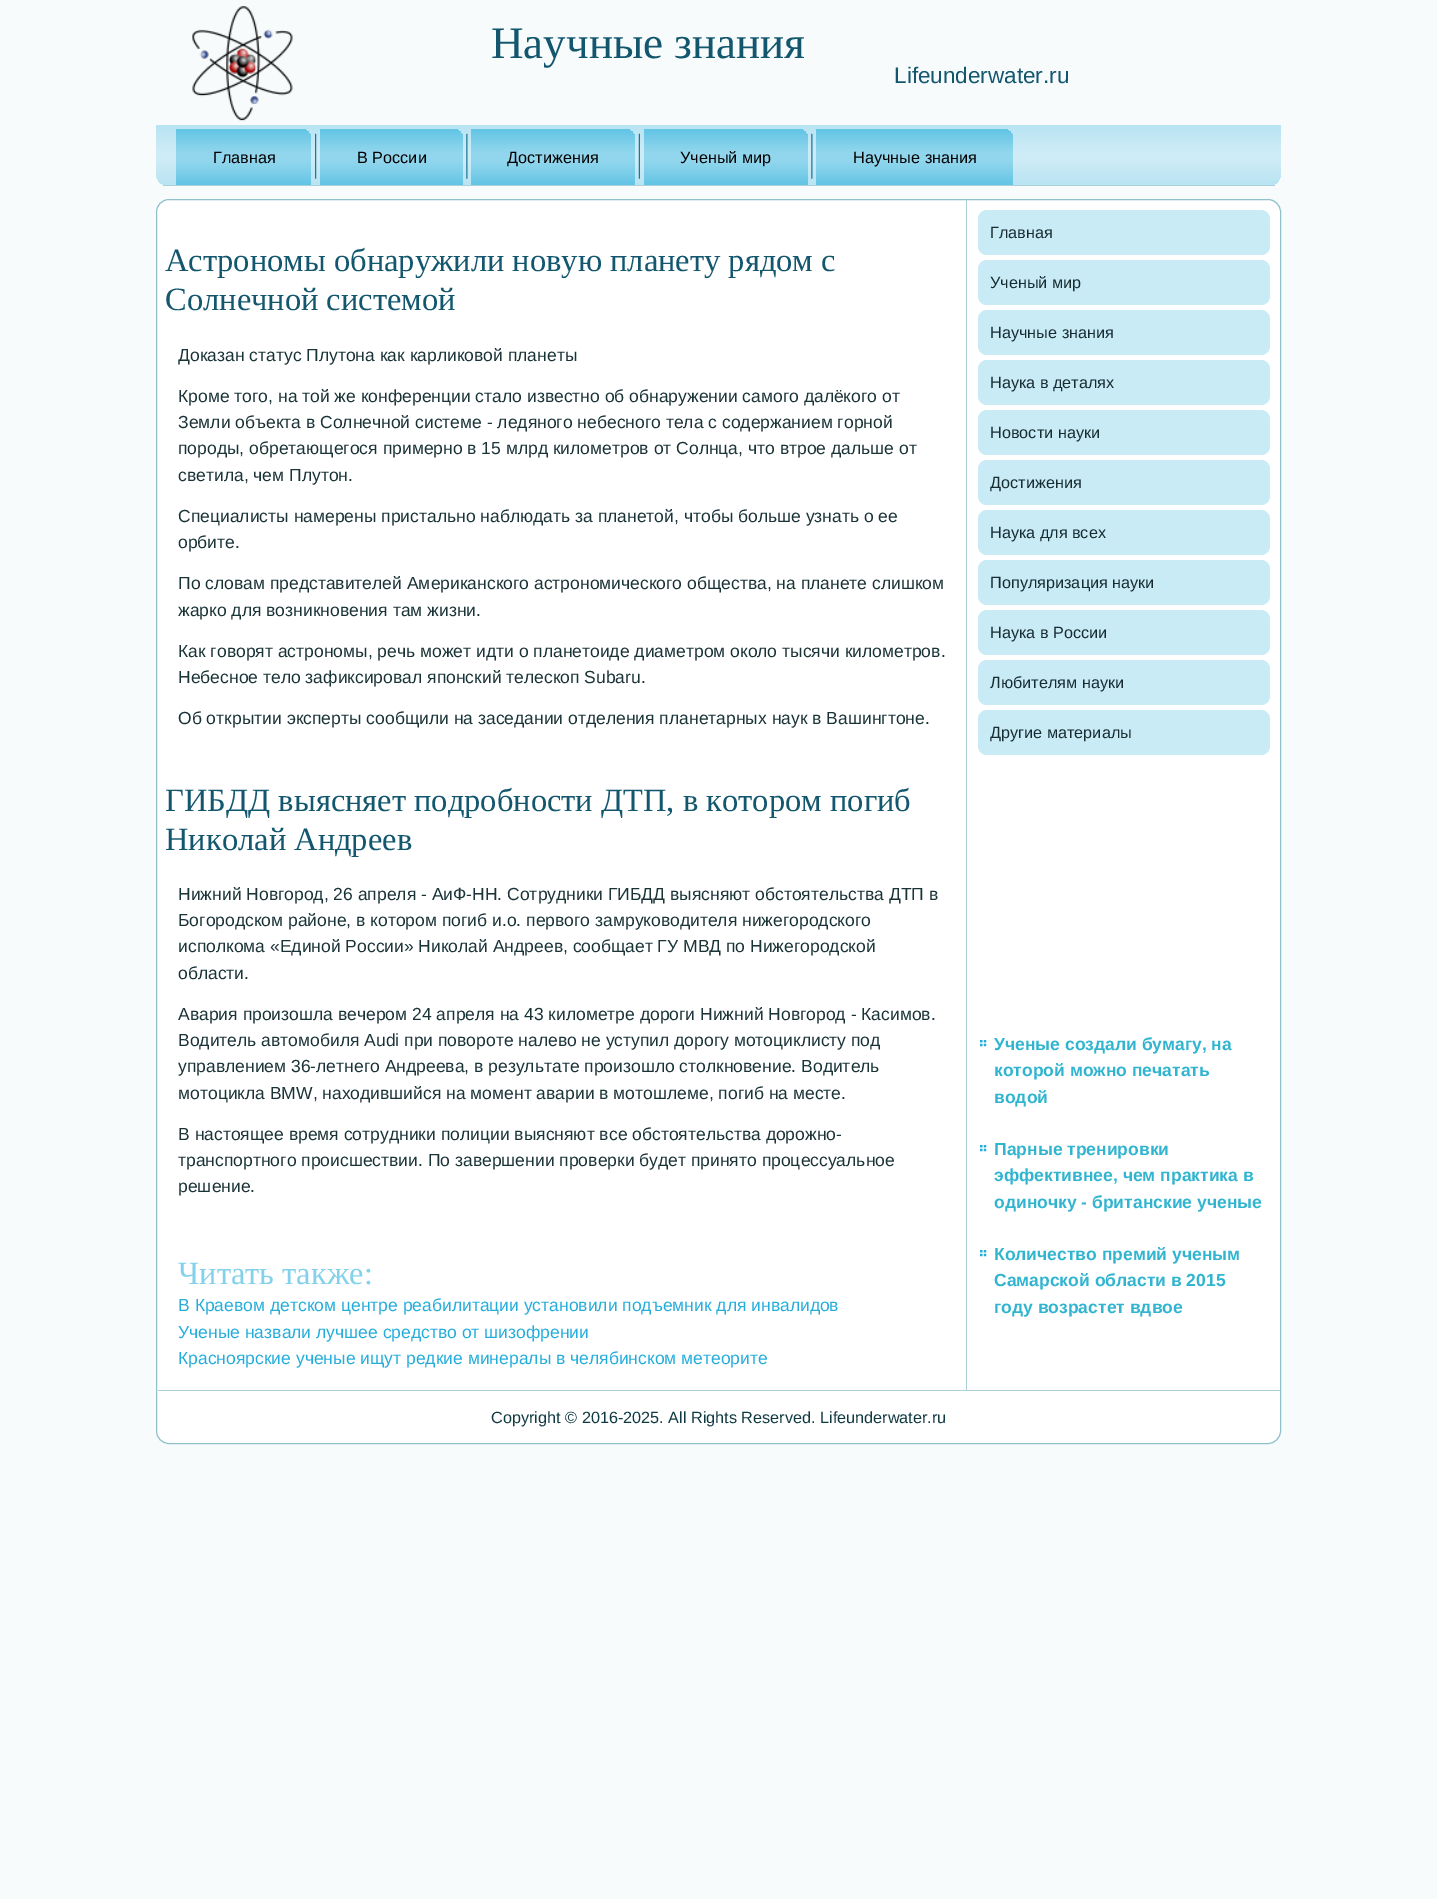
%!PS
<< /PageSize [1437 1899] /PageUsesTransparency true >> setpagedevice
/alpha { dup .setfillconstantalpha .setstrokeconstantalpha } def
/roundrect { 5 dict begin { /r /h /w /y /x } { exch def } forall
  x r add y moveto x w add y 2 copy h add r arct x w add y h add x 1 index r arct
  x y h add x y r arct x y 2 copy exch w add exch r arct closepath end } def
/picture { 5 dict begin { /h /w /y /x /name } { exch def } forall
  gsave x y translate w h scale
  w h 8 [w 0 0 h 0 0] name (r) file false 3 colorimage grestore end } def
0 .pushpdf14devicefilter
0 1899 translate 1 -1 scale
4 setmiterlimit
0.973 0.984 0.988 setrgbcolor
0 0 1437 1899 rectfill
(img1.rgb) 192 6 101 115 picture
/LiberationSerif-Regular [45 0 0 -45 0 0] selectfont
0.071 0.341 0.431 setrgbcolor
491 58 moveto (Научные знания) show
/LiberationSans-Regular [22.5 0 0 -22.5 0 0] selectfont
894 83 moveto (Lifeunderwater.ru) show
gsave newpath 156 125 moveto 1281 125 lineto 1281 173 lineto 1281 180 1275 186 1268 186 curveto 169 186 lineto 162 186 156 180 156 173 curveto closepath clip newpath
<< /ShadingType 2 /ColorSpace /DeviceRGB /Coords [719 125 719 186] /Extend [true true] /Function << /FunctionType 3 /Domain [0 1] /Functions [<< /FunctionType 2 /Domain [0 1] /C0 [0.722 0.894 0.949] /C1 [0.8 0.922 0.965] /N 1 >> << /FunctionType 2 /Domain [0 1] /C0 [0.8 0.922 0.965] /C1 [0.804 0.925 0.965] /N 1 >> << /FunctionType 2 /Domain [0 1] /C0 [0.804 0.925 0.965] /C1 [0.8 0.922 0.965] /N 1 >> << /FunctionType 2 /Domain [0 1] /C0 [0.8 0.922 0.965] /C1 [0.722 0.894 0.949] /N 1 >>] /Bounds [0.4 0.5 0.6] /Encode [0 1 0 1 0 1 0 1] >> >> shfill grestore
0.675 0.816 0.847 setrgbcolor
163 185 1112 1 rectfill
0.9 alpha
gsave newpath 176 129 moveto 301 129 lineto 306.5 129 311 133.5 311 139 curveto 311 185 lineto 176 185 lineto closepath clip newpath
<< /ShadingType 2 /ColorSpace /DeviceRGB /Coords [244 129 244 185] /Extend [true true] /Function << /FunctionType 3 /Domain [0 1] /Functions [<< /FunctionType 2 /Domain [0 1] /C0 [0.345 0.757 0.894] /C1 [0.537 0.827 0.925] /N 1 >> << /FunctionType 2 /Domain [0 1] /C0 [0.537 0.827 0.925] /C1 [0.553 0.835 0.925] /N 1 >> << /FunctionType 2 /Domain [0 1] /C0 [0.553 0.835 0.925] /C1 [0.537 0.827 0.925] /N 1 >> << /FunctionType 2 /Domain [0 1] /C0 [0.537 0.827 0.925] /C1 [0.345 0.757 0.894] /N 1 >>] /Bounds [0.4 0.5 0.6] /Encode [0 1 0 1 0 1 0 1] >> >> shfill grestore
/LiberationSans-Regular [16.25 0 0 -16.25 0 0] selectfont
1 alpha
0 setgray
213 163 moveto (Главная) show
(img2.rgb) 315 133 2 46 picture
0.9 alpha
gsave newpath 320 129 moveto 453 129 lineto 458.5 129 463 133.5 463 139 curveto 463 185 lineto 320 185 lineto closepath clip newpath
<< /ShadingType 2 /ColorSpace /DeviceRGB /Coords [391 129 391 185] /Extend [true true] /Function << /FunctionType 3 /Domain [0 1] /Functions [<< /FunctionType 2 /Domain [0 1] /C0 [0.345 0.757 0.894] /C1 [0.537 0.827 0.925] /N 1 >> << /FunctionType 2 /Domain [0 1] /C0 [0.537 0.827 0.925] /C1 [0.553 0.835 0.925] /N 1 >> << /FunctionType 2 /Domain [0 1] /C0 [0.553 0.835 0.925] /C1 [0.537 0.827 0.925] /N 1 >> << /FunctionType 2 /Domain [0 1] /C0 [0.537 0.827 0.925] /C1 [0.345 0.757 0.894] /N 1 >>] /Bounds [0.4 0.5 0.6] /Encode [0 1 0 1 0 1 0 1] >> >> shfill grestore
1 alpha
357 163 moveto (В России) show
(img3.rgb) 466 133 2 46 picture
0.9 alpha
gsave newpath 471 129 moveto 625 129 lineto 630.5 129 635 133.5 635 139 curveto 635 185 lineto 471 185 lineto closepath clip newpath
<< /ShadingType 2 /ColorSpace /DeviceRGB /Coords [553 129 553 185] /Extend [true true] /Function << /FunctionType 3 /Domain [0 1] /Functions [<< /FunctionType 2 /Domain [0 1] /C0 [0.345 0.757 0.894] /C1 [0.537 0.827 0.925] /N 1 >> << /FunctionType 2 /Domain [0 1] /C0 [0.537 0.827 0.925] /C1 [0.553 0.835 0.925] /N 1 >> << /FunctionType 2 /Domain [0 1] /C0 [0.553 0.835 0.925] /C1 [0.537 0.827 0.925] /N 1 >> << /FunctionType 2 /Domain [0 1] /C0 [0.537 0.827 0.925] /C1 [0.345 0.757 0.894] /N 1 >>] /Bounds [0.4 0.5 0.6] /Encode [0 1 0 1 0 1 0 1] >> >> shfill grestore
1 alpha
507 163 moveto (Достижения) show
(img4.rgb) 638 133 2 46 picture
0.9 alpha
gsave newpath 644 129 moveto 798 129 lineto 803.5 129 808 133.5 808 139 curveto 808 185 lineto 644 185 lineto closepath clip newpath
<< /ShadingType 2 /ColorSpace /DeviceRGB /Coords [726 129 726 185] /Extend [true true] /Function << /FunctionType 3 /Domain [0 1] /Functions [<< /FunctionType 2 /Domain [0 1] /C0 [0.345 0.757 0.894] /C1 [0.537 0.827 0.925] /N 1 >> << /FunctionType 2 /Domain [0 1] /C0 [0.537 0.827 0.925] /C1 [0.553 0.835 0.925] /N 1 >> << /FunctionType 2 /Domain [0 1] /C0 [0.553 0.835 0.925] /C1 [0.537 0.827 0.925] /N 1 >> << /FunctionType 2 /Domain [0 1] /C0 [0.537 0.827 0.925] /C1 [0.345 0.757 0.894] /N 1 >>] /Bounds [0.4 0.5 0.6] /Encode [0 1 0 1 0 1 0 1] >> >> shfill grestore
1 alpha
680 163 moveto (Ученый мир) show
(img3.rgb) 811 133 2 46 picture
0.9 alpha
gsave newpath 816 129 moveto 1003 129 lineto 1008.5 129 1013 133.5 1013 139 curveto 1013 185 lineto 816 185 lineto closepath clip newpath
<< /ShadingType 2 /ColorSpace /DeviceRGB /Coords [914 129 914 185] /Extend [true true] /Function << /FunctionType 3 /Domain [0 1] /Functions [<< /FunctionType 2 /Domain [0 1] /C0 [0.345 0.757 0.894] /C1 [0.537 0.827 0.925] /N 1 >> << /FunctionType 2 /Domain [0 1] /C0 [0.537 0.827 0.925] /C1 [0.553 0.835 0.925] /N 1 >> << /FunctionType 2 /Domain [0 1] /C0 [0.553 0.835 0.925] /C1 [0.537 0.827 0.925] /N 1 >> << /FunctionType 2 /Domain [0 1] /C0 [0.537 0.827 0.925] /C1 [0.345 0.757 0.894] /N 1 >>] /Bounds [0.4 0.5 0.6] /Encode [0 1 0 1 0 1 0 1] >> >> shfill grestore
1 alpha
853 163 moveto (Научные знания) show
1 setgray
156.5 199.5 1124 1244 12.5 roundrect gsave fill grestore
0.565 0.757 0.796 setrgbcolor
stroke
/LiberationSerif-Regular [32.5 0 0 -32.5 0 0] selectfont
0.071 0.341 0.431 setrgbcolor
165 271 moveto (Астрономы обнаружили новую планету рядом с) show
165 310 moveto (Солнечной системой) show
/LiberationSans-Regular [17.5 0 0 -17.5 0 0] selectfont
0.102 0.2 0.216 setrgbcolor
178 361 moveto (Доказан статус Плутона как карликовой планеты) show
178 402 moveto (Кроме того, на той же конференции стало известно об обнаружении самого далёкого от) show
178 428 moveto (Земли объекта в Солнечной системе - ледяного небесного тела с содержанием горной) show
178 454 moveto (породы, обретающегося примерно в 15 млрд километров от Солнца, что втрое дальше от) show
178 481 moveto (светила, чем Плутон.) show
178 522 moveto (Специалисты намерены пристально наблюдать за планетой, чтобы больше узнать о ее) show
178 548 moveto (орбите.) show
178 589 moveto (По словам представителей Американского астрономического общества, на планете слишком) show
178 616 moveto (жарко для возникновения там жизни.) show
178 657 moveto (Как говорят астрономы, речь может идти о планетоиде диаметром около тысячи километров.) show
178 683 moveto (Небесное тело зафиксировал японский телескоп Subaru.) show
178 724 moveto (Об открытии эксперты сообщили на заседании отделения планетарных наук в Вашингтоне.) show
/LiberationSerif-Regular [32.5 0 0 -32.5 0 0] selectfont
0.071 0.341 0.431 setrgbcolor
165 811 moveto (ГИБДД выясняет подробности ДТП, в котором погиб) show
165 850 moveto (Николай Андреев) show
/LiberationSans-Regular [17.5 0 0 -17.5 0 0] selectfont
0.102 0.2 0.216 setrgbcolor
178 900 moveto (Нижний Новгород, 26 апреля - АиФ-НН. Сотрудники ГИБДД выясняют обстоятельства ДТП в) show
178 926 moveto (Богородском районе, в котором погиб и.о. первого замруководителя нижегородского) show
178 952 moveto (исполкома «Единой России» Николай Андреев, сообщает ГУ МВД по Нижегородской) show
178 979 moveto (области.) show
178 1020 moveto (Авария произошла вечером 24 апреля на 43 километре дороги Нижний Новгород - Касимов.) show
178 1046 moveto (Водитель автомобиля Audi при повороте налево не уступил дорогу мотоциклисту под) show
178 1072 moveto (управлением 36-летнего Андреева, в результате произошло столкновение. Водитель) show
178 1099 moveto (мотоцикла BMW, находившийся на момент аварии в мотошлеме, погиб на месте.) show
178 1140 moveto (В настоящее время сотрудники полиции выясняют все обстоятельства дорожно-) show
178 1166 moveto (транспортного происшествии. По завершении проверки будет принято процессуальное) show
178 1192 moveto (решение.) show
/LiberationSerif-Regular [32.5 0 0 -32.5 0 0] selectfont
0.518 0.82 0.922 setrgbcolor
178 1284 moveto (Читать также:) show
/LiberationSans-Regular [17.5 0 0 -17.5 0 0] selectfont
0.141 0.678 0.859 setrgbcolor
178 1311 moveto (В Краевом детском центре реабилитации установили подъемник для инвалидов) show
178 1338 moveto (Ученые назвали лучшее средство от шизофрении) show
178 1364 moveto (Красноярские ученые ищут редкие минералы в челябинском метеорите) show
0.675 0.816 0.847 setrgbcolor
966 200 1 1190 rectfill
0.788 0.922 0.965 setrgbcolor
978 210 292 45 9 roundrect fill
/LiberationSans-Regular [16.25 0 0 -16.25 0 0] selectfont
0.09 0.173 0.192 setrgbcolor
990 238 moveto (Главная) show
0.788 0.922 0.965 setrgbcolor
978 260 292 45 9 roundrect fill
0.09 0.173 0.192 setrgbcolor
990 288 moveto (Ученый мир) show
0.788 0.922 0.965 setrgbcolor
978 310 292 45 9 roundrect fill
0.09 0.173 0.192 setrgbcolor
990 338 moveto (Научные знания) show
0.788 0.922 0.965 setrgbcolor
978 360 292 45 9 roundrect fill
0.09 0.173 0.192 setrgbcolor
990 388 moveto (Наука в деталях) show
0.788 0.922 0.965 setrgbcolor
978 410 292 45 9 roundrect fill
0.09 0.173 0.192 setrgbcolor
990 438 moveto (Новости науки) show
0.788 0.922 0.965 setrgbcolor
978 460 292 45 9 roundrect fill
0.09 0.173 0.192 setrgbcolor
990 488 moveto (Достижения) show
0.788 0.922 0.965 setrgbcolor
978 510 292 45 9 roundrect fill
0.09 0.173 0.192 setrgbcolor
990 538 moveto (Наука для всех) show
0.788 0.922 0.965 setrgbcolor
978 560 292 45 9 roundrect fill
0.09 0.173 0.192 setrgbcolor
990 588 moveto (Популяризация науки) show
0.788 0.922 0.965 setrgbcolor
978 610 292 45 9 roundrect fill
0.09 0.173 0.192 setrgbcolor
990 638 moveto (Наука в России) show
0.788 0.922 0.965 setrgbcolor
978 660 292 45 9 roundrect fill
0.09 0.173 0.192 setrgbcolor
990 688 moveto (Любителям науки) show
0.788 0.922 0.965 setrgbcolor
978 710 292 45 9 roundrect fill
0.09 0.173 0.192 setrgbcolor
990 738 moveto (Другие материалы) show
(img5.rgb) 980 1040 7 7 picture
/LiberationSans-Bold [17.5 0 0 -17.5 0 0] selectfont
0.188 0.706 0.812 setrgbcolor
994 1050 moveto (Ученые создали бумагу, на) show
994 1076 moveto (которой можно печатать) show
994 1103 moveto (водой) show
(img5.rgb) 980 1145 7 7 picture
994 1155 moveto (Парные тренировки) show
994 1181 moveto (эффективнее, чем практика в) show
994 1208 moveto (одиночку - британские ученые) show
(img5.rgb) 980 1250 7 7 picture
994 1260 moveto (Количество премий ученым) show
994 1286 moveto (Самарской области в 2015) show
994 1313 moveto (году возрастет вдвое) show
0.675 0.816 0.847 setrgbcolor
158 1390 1122 1 rectfill
/LiberationSans-Regular [16.25 0 0 -16.25 0 0] selectfont
0.063 0.227 0.259 setrgbcolor
491 1423 moveto (Copyright © 2016-2025. All Rights Reserved. Lifeunderwater.ru) show
.poppdf14devicefilter showpage
